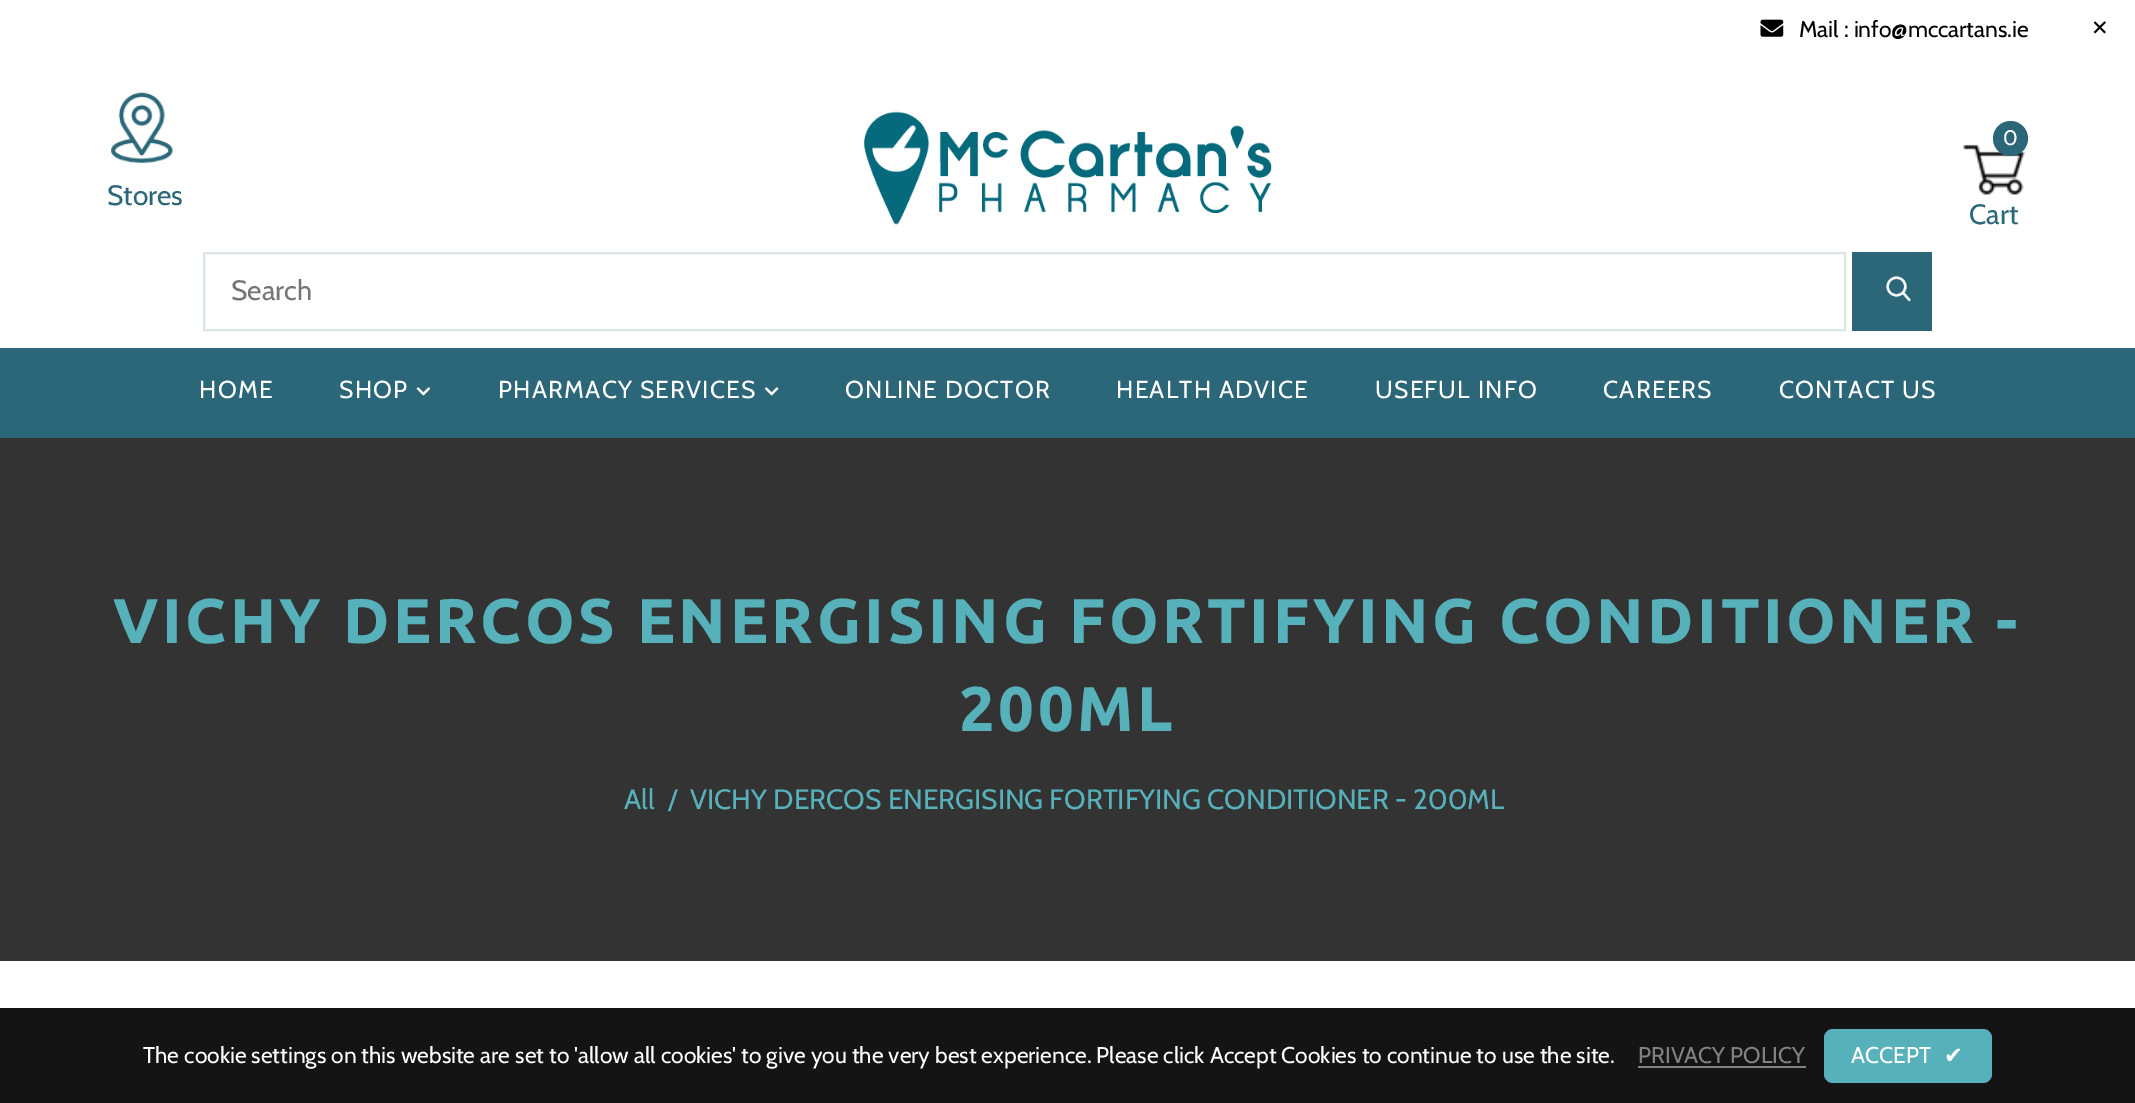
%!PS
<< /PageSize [2135 1103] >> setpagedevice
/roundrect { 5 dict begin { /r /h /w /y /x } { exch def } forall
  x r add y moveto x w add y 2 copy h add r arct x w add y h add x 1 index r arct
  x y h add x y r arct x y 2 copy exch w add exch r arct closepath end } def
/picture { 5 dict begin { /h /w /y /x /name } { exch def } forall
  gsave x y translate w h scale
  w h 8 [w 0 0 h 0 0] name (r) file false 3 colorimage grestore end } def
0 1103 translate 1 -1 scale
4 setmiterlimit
1 setgray
0 0 2135 1103 rectfill
(img1.rgb) 1760 19 24 18 picture
/Cabin-Regular [22.75 0 0 -22.75 0 0] selectfont
0 setgray
1799 37 moveto (Mail : info@mccartans.ie) show
/DejaVuSans-Regular [21 0 0 -21 0 0] selectfont
2091 35 moveto (✕) show
(img2.rgb) 110 92 63 71 picture
/Cabin-Regular [28 0 0 -28 0 0] selectfont
0.173 0.404 0.475 setrgbcolor
107 205 moveto (Stores) show
(img3.rgb) 864 111 408 114 picture
(img4.rgb) 1963 144 63 51 picture
newpath 2010.5 138.5 17.5 0 360 arc closepath fill
/Cabin-Regular [21 0 0 -21 0 0] selectfont
1 setgray
2003 145 moveto (0) show
/Cabin-Regular [28 0 0 -28 0 0] selectfont
0.173 0.404 0.475 setrgbcolor
1969 224 moveto (Cart) show
0.855 0.906 0.894 setrgbcolor
2 setlinewidth
204 253 1641 77 rectstroke
0.459 setgray
231 300 moveto (Search) show
0.173 0.404 0.475 setrgbcolor
1852 252 80 79 rectfill
(img5.rgb) 1886 276 25 26 picture
0 348 2135 90 rectfill
/Cabin-Regular [24.5 0 0 -24.5 0 0] selectfont
1 setgray
199 398 moveto 1.25 0 (HOME) ashow
339 398 moveto 1.25 0 (SHOP) ashow
(img6.rgb) 416 387 15 9 picture
498 398 moveto 1.25 0 (PHARMACY SERVICES) ashow
(img7.rgb) 765 387 14 9 picture
845 398 moveto 1.25 0 (ONLINE DOCTOR) ashow
1116 398 moveto 1.25 0 (HEALTH ADVICE) ashow
1375 398 moveto 1.25 0 (USEFUL INFO) ashow
1603 398 moveto 1.25 0 (CAREERS) ashow
1779 398 moveto 1.25 0 (CONTACT US) ashow
0.2 setgray
0 438 2135 523 rectfill
/Ubuntu-Bold [63 0 0 -63 0 0] selectfont
0.341 0.694 0.729 setrgbcolor
113 643 moveto 3.5 0 (VICHY DERCOS ENERGISING FORTIFYING CONDITIONER -) ashow
959 731 moveto 3.5 0 (200ML) ashow
/Cabin-Regular [28 0 0 -28 0 0] selectfont
624 809 moveto (All) show
668 809 moveto (/) show
690 809 moveto (VICHY DERCOS ENERGISING FORTIFYING CONDITIONER - 200ML) show
0.078 setgray
0 1008 2135 95 rectfill
/Cabin-Regular [22.75 0 0 -22.75 0 0] selectfont
1 setgray
143 1063 moveto (The cookie settings on this website are set to 'allow all cookies' to give you the very best experience. Please click Accept Cookies to continue to use the site.) show
0.506 setgray
1638 1063 moveto (PRIVACY POLICY) show
1638 1066 168 2 rectfill
0.341 0.694 0.729 setrgbcolor
1824 1029 168 54 9 roundrect fill
1 setgray
1851 1063 moveto (ACCEPT) show
/DejaVuSans-Regular [22.75 0 0 -22.75 0 0] selectfont
1944 1063 moveto (✔) show
showpage
